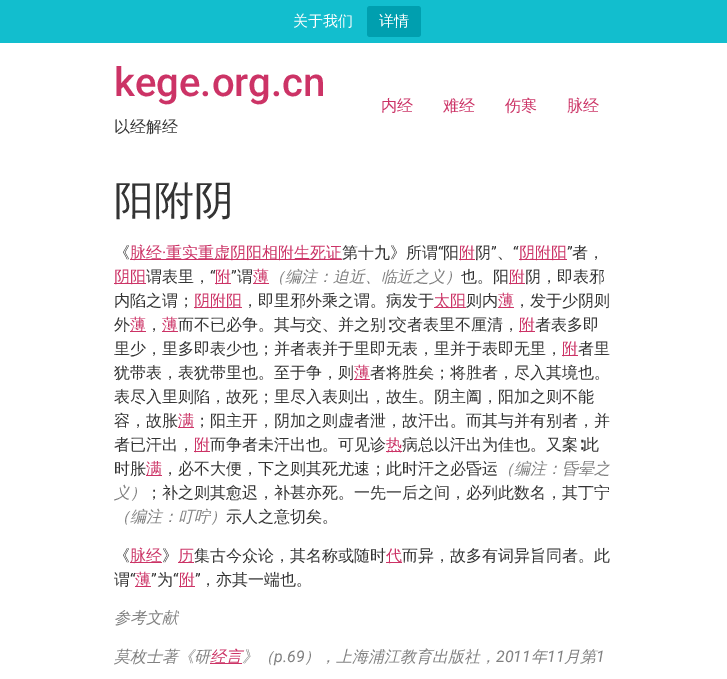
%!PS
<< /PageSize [727 679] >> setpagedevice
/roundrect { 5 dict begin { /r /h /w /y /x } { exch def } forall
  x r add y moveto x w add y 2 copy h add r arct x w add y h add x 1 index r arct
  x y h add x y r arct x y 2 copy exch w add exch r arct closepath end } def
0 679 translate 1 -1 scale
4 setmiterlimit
1 setgray
0 0 727 679 rectfill
0.071 0.745 0.808 setrgbcolor
0 0 727 43 rectfill
/WenQuanYiZenHei-Medium [15 0 0 -15 0 0] selectfont
1 setgray
293 26 moveto (关于我们) show
0 0.624 0.686 setrgbcolor
367 6 54 31 3 roundrect fill
1 setgray
379 26 moveto (详情) show
/Roboto-Medium [40 0 0 -40 0 0] selectfont
0.8 0.2 0.4 setrgbcolor
114 96 moveto (kege.org.cn) show
/WenQuanYiZenHei-Medium [16 0 0 -16 0 0] selectfont
0.2 setgray
114 132 moveto (以经解经) show
0.8 0.2 0.4 setrgbcolor
381 111 moveto (内经) show
443 111 moveto (难经) show
505 111 moveto (伤寒) show
567 111 moveto (脉经) show
/WenQuanYiZenHei-Medium [40 0 0 -40 0 0] selectfont
0.2 setgray
114 214 moveto (阳附阴) show
/WenQuanYiZenHei-Medium [16 0 0 -16 0 0] selectfont
114 258 moveto (《) show
0.8 0.2 0.4 setrgbcolor
130 259 212 1 rectfill
130 258 moveto (脉经) show
166 258 moveto (重实重虚阴阳相附生死证) show
0.2 setgray
342 258 moveto (第十九》所谓) show
/Roboto-Regular [16 0 0 -16 0 0] selectfont
438 258 moveto (“) show
/WenQuanYiZenHei-Medium [16 0 0 -16 0 0] selectfont
443 258 moveto (阳) show
0.8 0.2 0.4 setrgbcolor
459 259 16 1 rectfill
459 258 moveto (附) show
0.2 setgray
475 258 moveto (阴) show
/Roboto-Regular [16 0 0 -16 0 0] selectfont
491 258 moveto (”) show
513 258 moveto (“) show
0.8 0.2 0.4 setrgbcolor
519 259 48 1 rectfill
/WenQuanYiZenHei-Medium [16 0 0 -16 0 0] selectfont
519 258 moveto (阴附阳) show
/Roboto-Regular [16 0 0 -16 0 0] selectfont
0.2 setgray
567 258 moveto (”) show
/WenQuanYiZenHei-Medium [16 0 0 -16 0 0] selectfont
572 258 moveto (者，) show
/Roboto-Regular [16 0 0 -16 0 0] selectfont
0.8 0.2 0.4 setrgbcolor
162 258 moveto (·) show
/WenQuanYiZenHei-Medium [16 0 0 -16 0 0] selectfont
0.2 setgray
497 258 moveto (、) show
0.8 0.2 0.4 setrgbcolor
114 283 32 1 rectfill
114 282 moveto (阴阳) show
0.2 setgray
146 282 moveto (谓表里，) show
/Roboto-Regular [16 0 0 -16 0 0] selectfont
210 282 moveto (“) show
0.8 0.2 0.4 setrgbcolor
215 283 16 1 rectfill
/WenQuanYiZenHei-Medium [16 0 0 -16 0 0] selectfont
215 282 moveto (附) show
/Roboto-Regular [16 0 0 -16 0 0] selectfont
0.2 setgray
231 282 moveto (”) show
/WenQuanYiZenHei-Medium [16 0 0 -16 0 0] selectfont
237 282 moveto (谓) show
0.8 0.2 0.4 setrgbcolor
253 283 16 1 rectfill
253 282 moveto (薄) show
/WenQuanYiZenHei-MediumItalic [16 0 0 -16 0 0] selectfont
0.502 setgray
269 282 moveto (（编注：迫近、临近之义）) show
/WenQuanYiZenHei-Medium [16 0 0 -16 0 0] selectfont
0.2 setgray
461 282 moveto (也。阳) show
0.8 0.2 0.4 setrgbcolor
509 283 16 1 rectfill
509 282 moveto (附) show
0.2 setgray
525 282 moveto (阴，即表邪) show
114 306 moveto (内陷之谓；) show
0.8 0.2 0.4 setrgbcolor
194 307 48 1 rectfill
194 306 moveto (阴附阳) show
0.2 setgray
242 306 moveto (，即里邪外乘之谓。病发于) show
0.8 0.2 0.4 setrgbcolor
434 307 32 1 rectfill
434 306 moveto (太阳) show
0.2 setgray
466 306 moveto (则内) show
0.8 0.2 0.4 setrgbcolor
498 307 16 1 rectfill
498 306 moveto (薄) show
0.2 setgray
514 306 moveto (，发于少阴则) show
114 330 moveto (外) show
0.8 0.2 0.4 setrgbcolor
130 331 16 1 rectfill
130 330 moveto (薄) show
0.2 setgray
146 330 moveto (，) show
0.8 0.2 0.4 setrgbcolor
162 331 16 1 rectfill
162 330 moveto (薄) show
0.2 setgray
178 330 moveto (而不已必争。其与交、并之别∶交者表里不厘清，) show
0.8 0.2 0.4 setrgbcolor
519 331 16 1 rectfill
519 330 moveto (附) show
0.2 setgray
535 330 moveto (者表多即) show
114 354 moveto (里少，里多即表少也；并者表并于里即无表，里并于表即无里，) show
0.8 0.2 0.4 setrgbcolor
562 355 16 1 rectfill
562 354 moveto (附) show
0.2 setgray
578 354 moveto (者里) show
114 378 moveto (犹带表，表犹带里也。至于争，则) show
0.8 0.2 0.4 setrgbcolor
354 379 16 1 rectfill
354 378 moveto (薄) show
0.2 setgray
370 378 moveto (者将胜矣；将胜者，尽入其境也。) show
114 402 moveto (表尽入里则陷，故死；里尽入表则出，故生。阴主阖，阳加之则不能) show
114 426 moveto (容，故胀) show
0.8 0.2 0.4 setrgbcolor
178 427 16 1 rectfill
178 426 moveto (满) show
0.2 setgray
194 426 moveto (；阳主开，阴加之则虚者泄，故汗出。而其与并有别者，并) show
114 450 moveto (者已汗出，) show
0.8 0.2 0.4 setrgbcolor
194 451 16 1 rectfill
194 450 moveto (附) show
0.2 setgray
210 450 moveto (而争者未汗出也。可见诊) show
0.8 0.2 0.4 setrgbcolor
386 451 16 1 rectfill
386 450 moveto (热) show
0.2 setgray
402 450 moveto (病总以汗出为佳也。又案∶此) show
114 474 moveto (时胀) show
0.8 0.2 0.4 setrgbcolor
146 475 16 1 rectfill
146 474 moveto (满) show
0.2 setgray
162 474 moveto (，必不大便，下之则其死尤速；此时汗之必昏运) show
/WenQuanYiZenHei-MediumItalic [16 0 0 -16 0 0] selectfont
0.502 setgray
498 474 moveto (（编注：昏晕之) show
114 498 moveto (义）) show
/WenQuanYiZenHei-Medium [16 0 0 -16 0 0] selectfont
0.2 setgray
146 498 moveto (；补之则其愈迟，补甚亦死。一先一后之间，必列此数名，其丁宁) show
/WenQuanYiZenHei-MediumItalic [16 0 0 -16 0 0] selectfont
0.502 setgray
114 522 moveto (（编注：叮咛）) show
/WenQuanYiZenHei-Medium [16 0 0 -16 0 0] selectfont
0.2 setgray
226 522 moveto (示人之意切矣。) show
114 561 moveto (《) show
0.8 0.2 0.4 setrgbcolor
130 562 32 1 rectfill
130 561 moveto (脉经) show
0.2 setgray
162 561 moveto (》) show
0.8 0.2 0.4 setrgbcolor
178 562 16 1 rectfill
178 561 moveto (历) show
0.2 setgray
194 561 moveto (集古今众论，其名称或随时) show
0.8 0.2 0.4 setrgbcolor
386 562 16 1 rectfill
386 561 moveto (代) show
0.2 setgray
402 561 moveto (而异，故多有词异旨同者。此) show
114 585 moveto (谓) show
/Roboto-Regular [16 0 0 -16 0 0] selectfont
130 585 moveto (“) show
0.8 0.2 0.4 setrgbcolor
135 586 16 1 rectfill
/WenQuanYiZenHei-Medium [16 0 0 -16 0 0] selectfont
135 585 moveto (薄) show
/Roboto-Regular [16 0 0 -16 0 0] selectfont
0.2 setgray
151 585 moveto (”) show
/WenQuanYiZenHei-Medium [16 0 0 -16 0 0] selectfont
157 585 moveto (为) show
/Roboto-Regular [16 0 0 -16 0 0] selectfont
173 585 moveto (“) show
0.8 0.2 0.4 setrgbcolor
179 586 16 1 rectfill
/WenQuanYiZenHei-Medium [16 0 0 -16 0 0] selectfont
179 585 moveto (附) show
/Roboto-Regular [16 0 0 -16 0 0] selectfont
0.2 setgray
195 585 moveto (”) show
/WenQuanYiZenHei-Medium [16 0 0 -16 0 0] selectfont
200 585 moveto (，亦其一端也。) show
/WenQuanYiZenHei-MediumItalic [16 0 0 -16 0 0] selectfont
0.502 setgray
114 623 moveto (参考文献) show
114 662 moveto (莫枚士著《研) show
0.8 0.2 0.4 setrgbcolor
210 663 32 1 rectfill
210 662 moveto (经言) show
0.502 setgray
242 662 moveto (》（) show
/Roboto-Italic [16 0 0 -16 0 0] selectfont
274 662 moveto (p.69) show
/WenQuanYiZenHei-MediumItalic [16 0 0 -16 0 0] selectfont
304 662 moveto (），上海浦江教育出版社，) show
/Roboto-Italic [16 0 0 -16 0 0] selectfont
496 662 moveto (2011) show
/WenQuanYiZenHei-MediumItalic [16 0 0 -16 0 0] selectfont
531 662 moveto (年) show
/Roboto-Italic [16 0 0 -16 0 0] selectfont
547 662 moveto (11) show
/WenQuanYiZenHei-MediumItalic [16 0 0 -16 0 0] selectfont
564 662 moveto (月第) show
/Roboto-Italic [16 0 0 -16 0 0] selectfont
596 662 moveto (1) show
showpage
